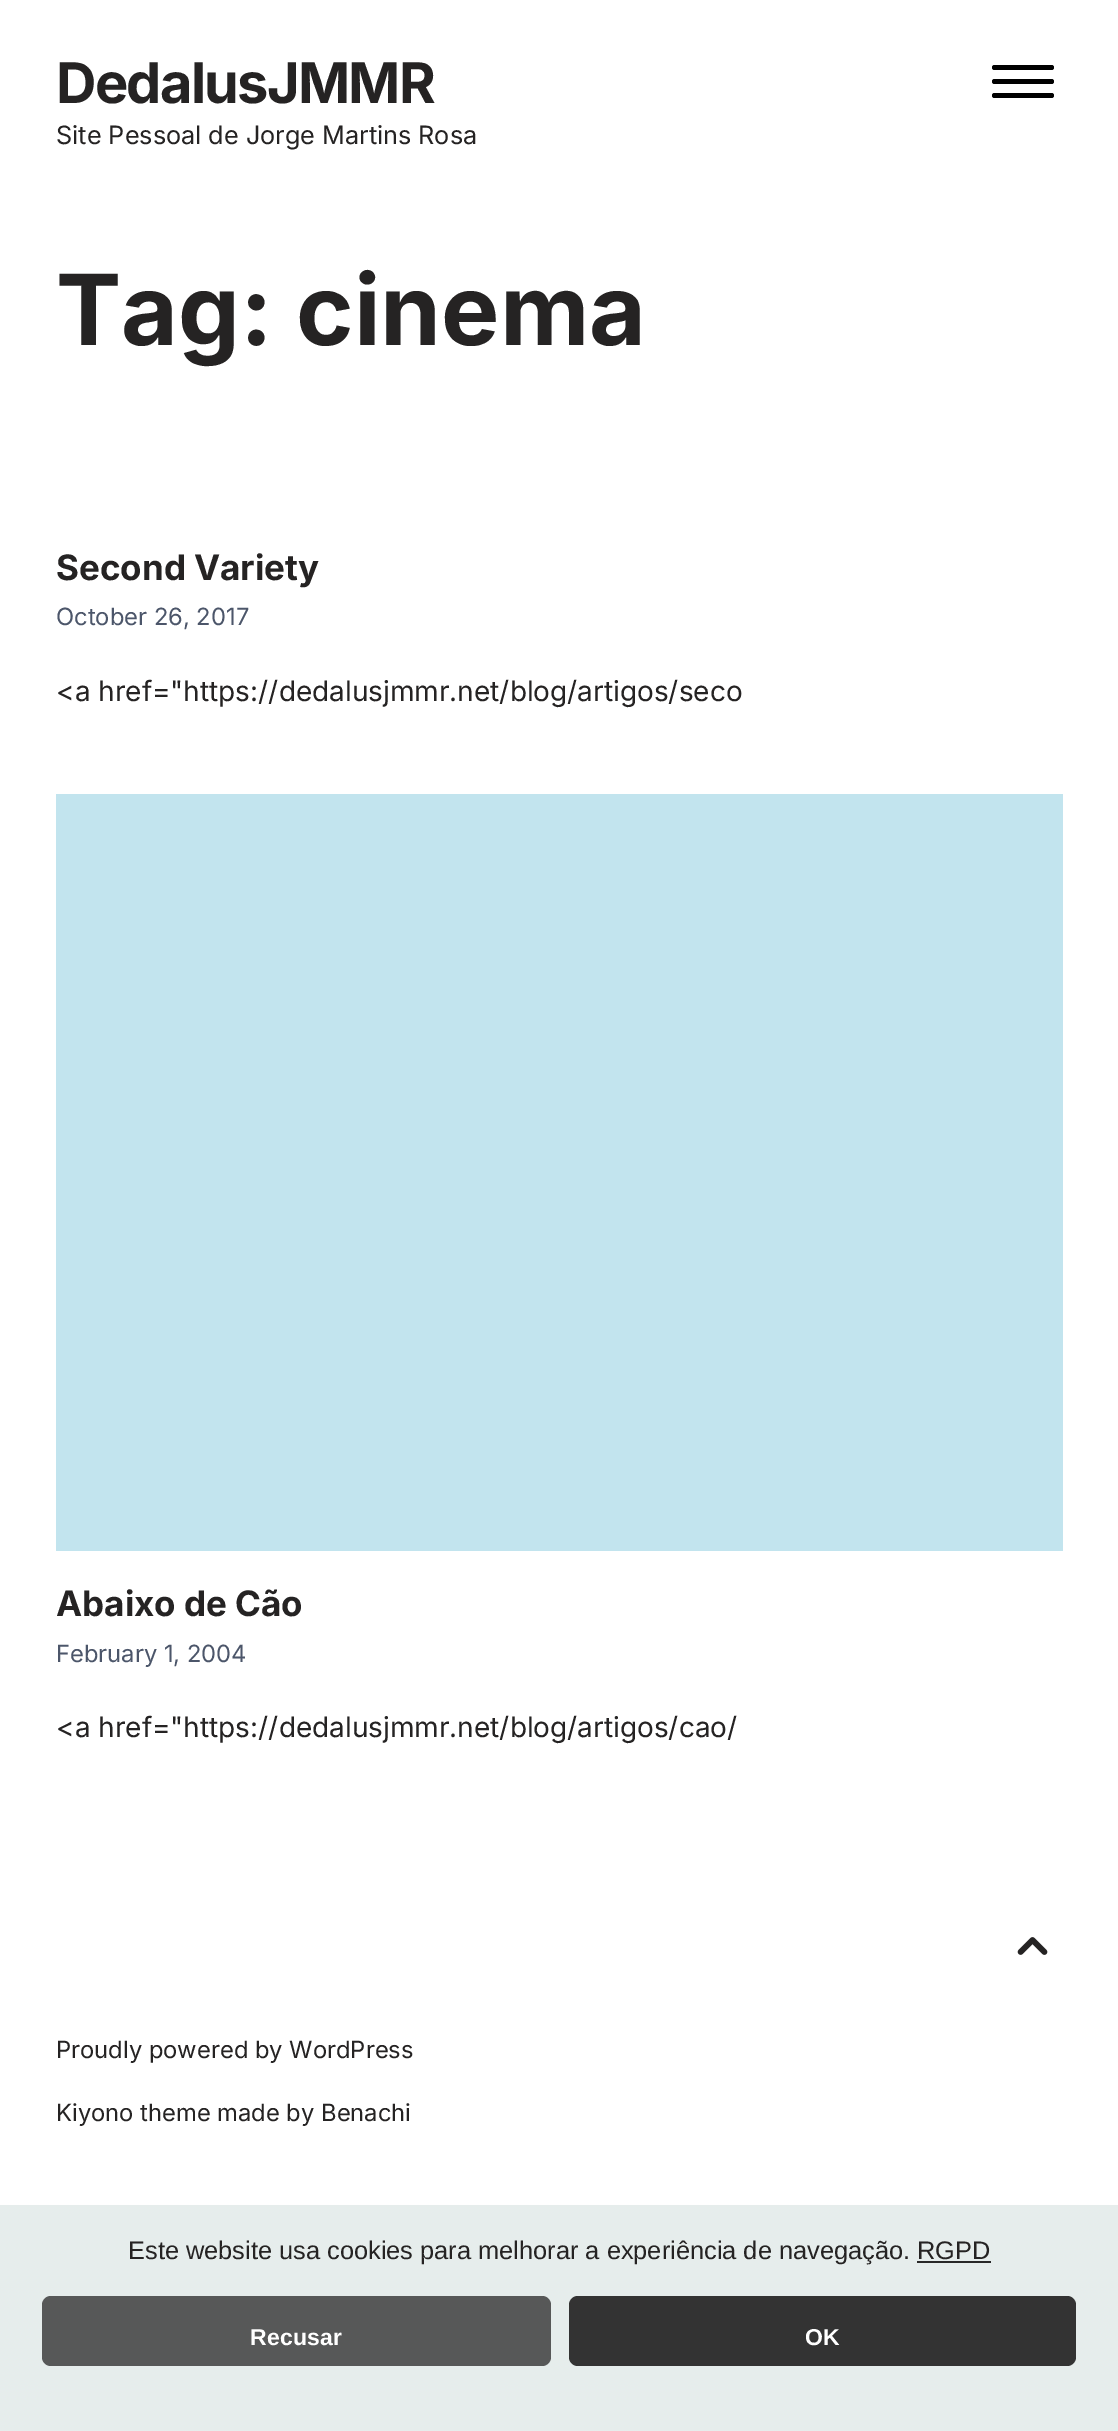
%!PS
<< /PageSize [1118 2431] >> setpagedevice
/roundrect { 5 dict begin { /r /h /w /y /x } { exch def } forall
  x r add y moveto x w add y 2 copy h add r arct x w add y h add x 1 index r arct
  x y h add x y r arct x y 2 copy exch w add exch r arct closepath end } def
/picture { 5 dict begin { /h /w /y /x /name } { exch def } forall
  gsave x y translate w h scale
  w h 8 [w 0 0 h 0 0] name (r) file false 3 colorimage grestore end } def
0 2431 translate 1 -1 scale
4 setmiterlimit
1 setgray
0 0 1118 2431 rectfill
/Inter-Bold [56 0 0 -56 0 0] selectfont
0.145 0.137 0.137 setrgbcolor
56 103 moveto -1.75 0 (DedalusJMMR) ashow
/Inter-Regular [25.25 0 0 -25.25 0 0] selectfont
56 144 moveto (Site Pessoal de Jorge Martins Rosa) show
0 setgray
992 65 62 5 2.5 roundrect fill
992 79 62 5 2.5 roundrect fill
992 93 62 5 2.5 roundrect fill
/Inter-Bold [98 0 0 -98 0 0] selectfont
0.145 0.137 0.137 setrgbcolor
56 345 moveto (Tag: cinema) show
/Inter-Bold [35 0 0 -35 0 0] selectfont
56 580 moveto (Second Variety) show
/Inter-Regular [23.75 0 0 -23.75 0 0] selectfont
0.298 0.337 0.416 setrgbcolor
56 625 moveto (October 26, 2017) show
/Inter-Regular [28 0 0 -28 0 0] selectfont
0.145 0.137 0.137 setrgbcolor
56 701 moveto (<a href="https://dedalusjmmr.net/blog/artigos/seco) show
0.761 0.894 0.933 setrgbcolor
56 794 1007 757 rectfill
/Inter-Bold [35 0 0 -35 0 0] selectfont
0.145 0.137 0.137 setrgbcolor
56 1616 moveto (Abaixo de Cão) show
/Inter-Regular [23.75 0 0 -23.75 0 0] selectfont
0.298 0.337 0.416 setrgbcolor
56 1662 moveto (February 1, 2004) show
/Inter-Regular [28 0 0 -28 0 0] selectfont
0.145 0.137 0.137 setrgbcolor
56 1737 moveto (<a href="https://dedalusjmmr.net/blog/artigos/cao/) show
(img1.rgb) 1017 1937 31 18 picture
/Inter-Regular [23.75 0 0 -23.75 0 0] selectfont
56 2058 moveto (Proudly powered by WordPress) show
56 2121 moveto (Kiyono theme made by Benachi) show
0.902 0.929 0.925 setrgbcolor
0 2205 1118 226 rectfill
/LiberationSans-Regular [25.4 0 0 -25.4 0 0] selectfont
0.145 0.137 0.137 setrgbcolor
128 2259 moveto (Este website usa cookies para melhorar a experiência de navegação.) show
917 2259 moveto (RGPD) show
0.157 setgray
917 2261 74 2 rectfill
0.341 0.345 0.345 setrgbcolor
42 2296 509 70 9 roundrect fill
/LiberationSans-Bold [23 0 0 -23 0 0] selectfont
1 setgray
250 2345 moveto 0.25 0 (Recusar) ashow
0.2 setgray
569 2296 507 70 9 roundrect fill
1 setgray
805 2345 moveto 0.25 0 (OK) ashow
showpage
